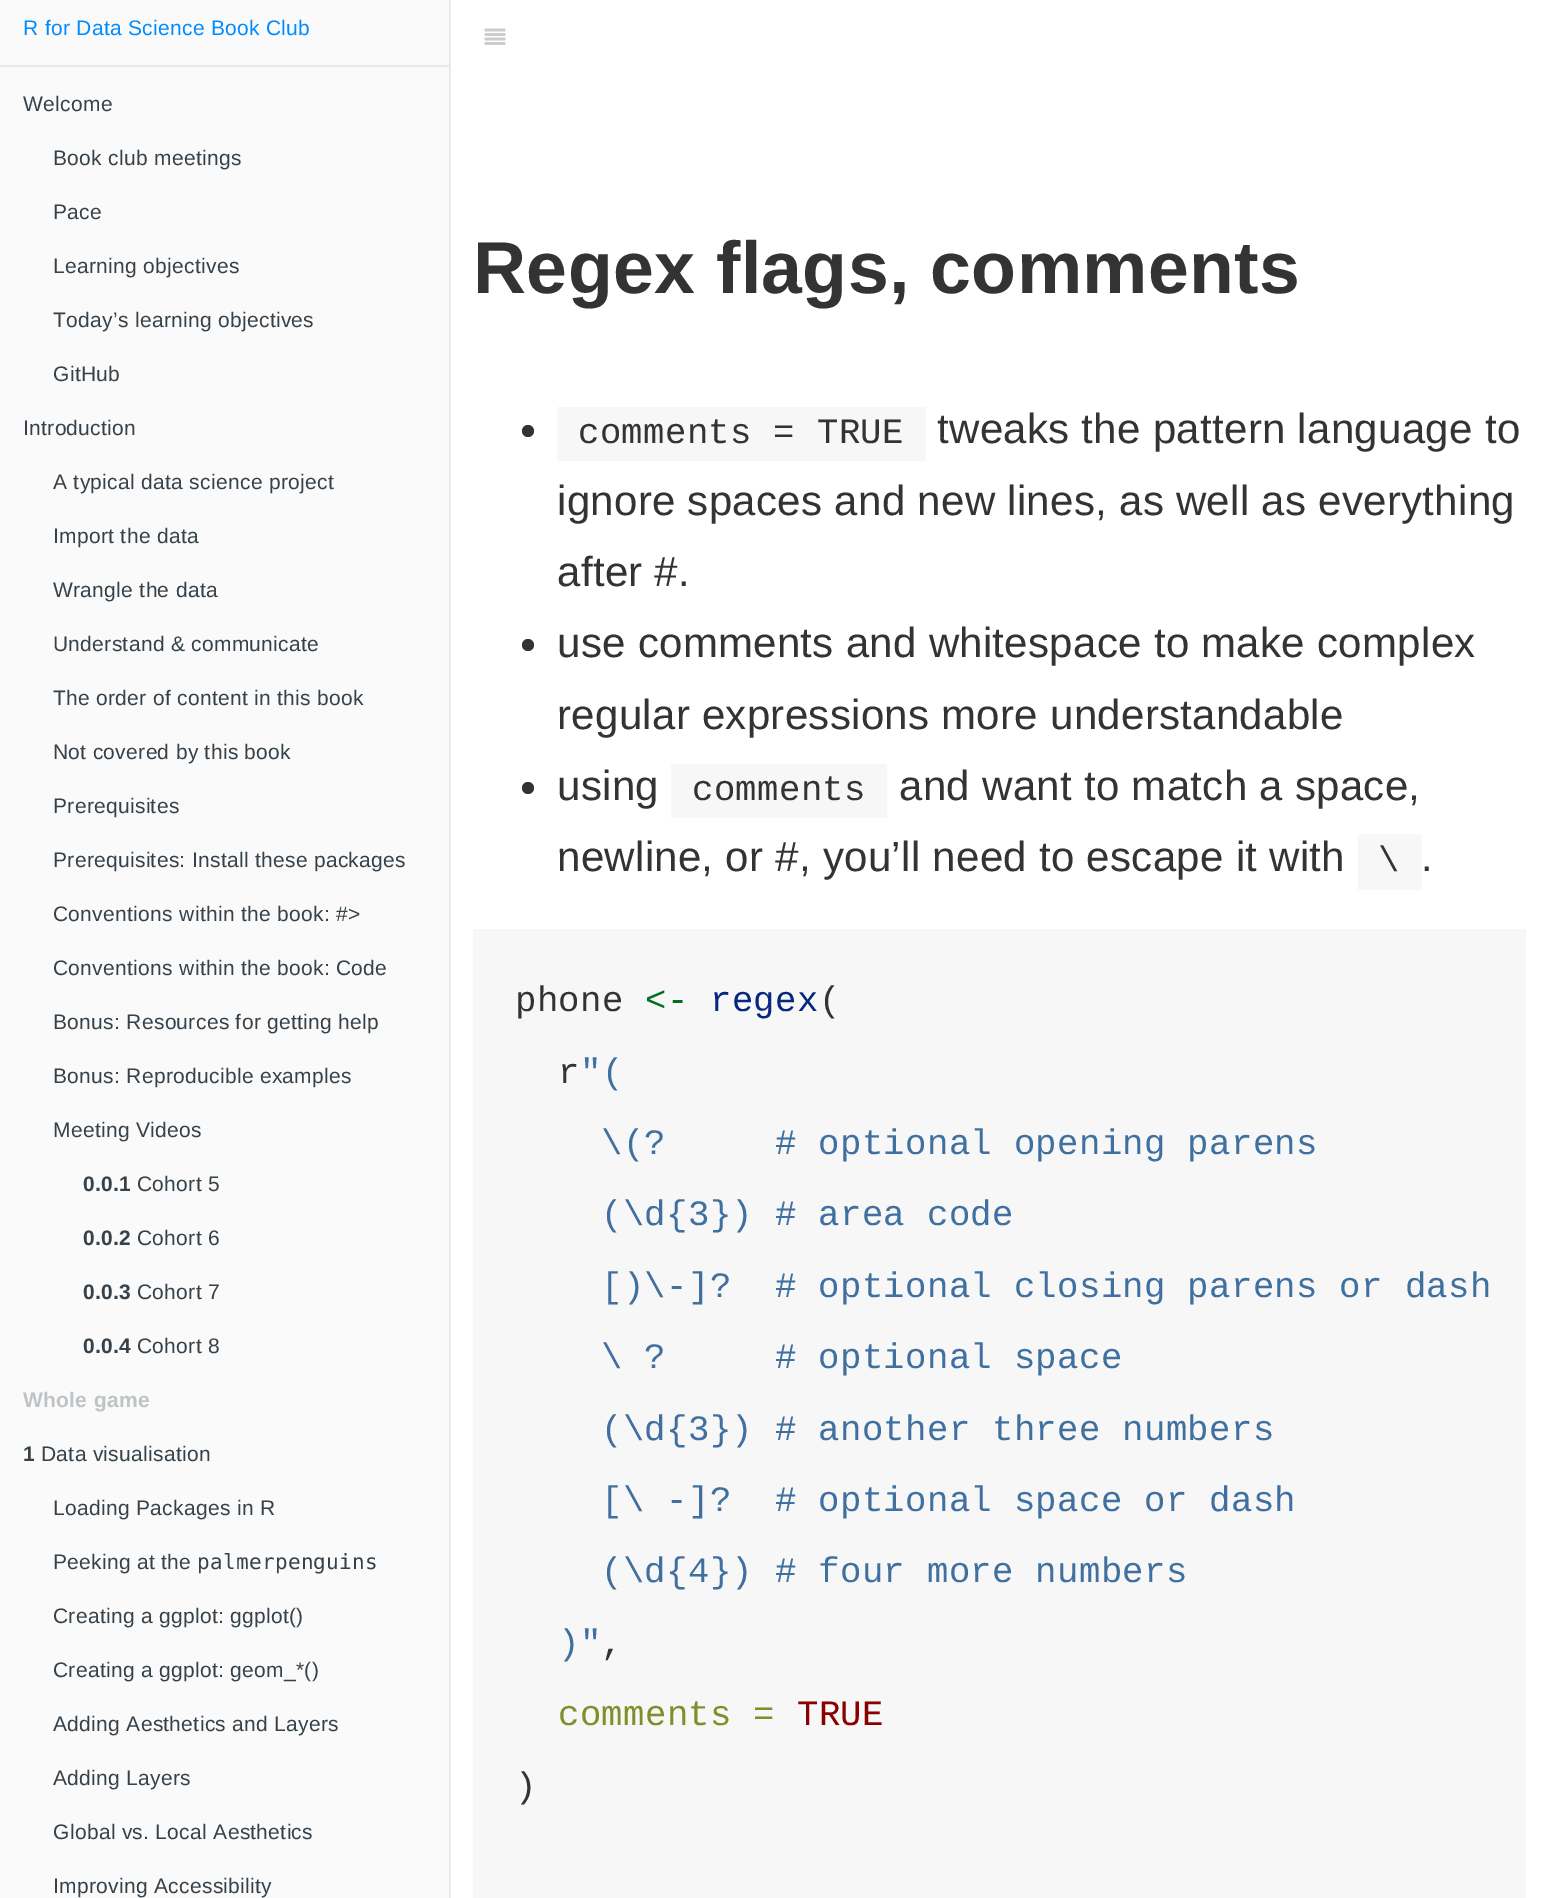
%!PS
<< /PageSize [1548 1898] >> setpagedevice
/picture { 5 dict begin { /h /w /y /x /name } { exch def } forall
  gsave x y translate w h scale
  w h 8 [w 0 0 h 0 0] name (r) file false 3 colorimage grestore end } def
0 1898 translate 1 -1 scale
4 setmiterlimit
1 setgray
0 0 1548 1898 rectfill
0.929 setgray
450 0 1 1898 rectfill
0.98 setgray
0 0 449 1898 rectfill
0.91 setgray
449 0 1 1898 rectfill
/LiberationSans-Regular [21 0 0 -21 0 0] selectfont
0 0.549 1 setrgbcolor
23 35 moveto 0.3 0 (R for Data Science Book Club) ashow
0.914 setgray
0 65 449 2 rectfill
0.212 0.255 0.286 setrgbcolor
23 111 moveto 0.3 0 (Welcome) ashow
53 165 moveto 0.3 0 (Book club meetings) ashow
53 219 moveto 0.3 0 (Pace) ashow
53 273 moveto 0.3 0 (Learning objectives) ashow
53 327 moveto 0.3 0 (Today’s learning objectives) ashow
53 381 moveto 0.3 0 (GitHub) ashow
23 435 moveto 0.3 0 (Introduction) ashow
53 489 moveto 0.3 0 (A typical data science project) ashow
53 543 moveto 0.3 0 (Import the data) ashow
53 597 moveto 0.3 0 (Wrangle the data) ashow
53 651 moveto 0.3 0 (Understand & communicate) ashow
53 705 moveto 0.3 0 (The order of content in this book) ashow
53 759 moveto 0.3 0 (Not covered by this book) ashow
53 813 moveto 0.3 0 (Prerequisites) ashow
53 867 moveto 0.3 0 (Prerequisites: Install these packages) ashow
53 921 moveto 0.3 0 (Conventions within the book: #>) ashow
53 975 moveto 0.3 0 (Conventions within the book: Code) ashow
53 1029 moveto 0.3 0 (Bonus: Resources for getting help) ashow
53 1083 moveto 0.3 0 (Bonus: Reproducible examples) ashow
53 1137 moveto 0.3 0 (Meeting Videos) ashow
/LiberationSans-Bold [21 0 0 -21 0 0] selectfont
83 1191 moveto 0.3 0 (0.0.1) ashow
/LiberationSans-Regular [21 0 0 -21 0 0] selectfont
137 1191 moveto 0.3 0 (Cohort 5) ashow
/LiberationSans-Bold [21 0 0 -21 0 0] selectfont
83 1245 moveto 0.3 0 (0.0.2) ashow
/LiberationSans-Regular [21 0 0 -21 0 0] selectfont
137 1245 moveto 0.3 0 (Cohort 6) ashow
/LiberationSans-Bold [21 0 0 -21 0 0] selectfont
83 1299 moveto 0.3 0 (0.0.3) ashow
/LiberationSans-Regular [21 0 0 -21 0 0] selectfont
137 1299 moveto 0.3 0 (Cohort 7) ashow
/LiberationSans-Bold [21 0 0 -21 0 0] selectfont
83 1353 moveto 0.3 0 (0.0.4) ashow
/LiberationSans-Regular [21 0 0 -21 0 0] selectfont
137 1353 moveto 0.3 0 (Cohort 8) ashow
/LiberationSans-Bold [21 0 0 -21 0 0] selectfont
0.749 0.765 0.773 setrgbcolor
23 1407 moveto 0.3 0 (Whole game) ashow
0.212 0.255 0.286 setrgbcolor
23 1461 moveto 0.3 0 (1) ashow
/LiberationSans-Regular [21 0 0 -21 0 0] selectfont
41 1461 moveto 0.3 0 (Data visualisation) ashow
53 1515 moveto 0.3 0 (Loading Packages in R) ashow
53 1569 moveto 0.3 0 (Peeking at the) ashow
/DejaVuSansMono-Regular [21 0 0 -21 0 0] selectfont
197 1569 moveto 0.3 0 (palmerpenguins) ashow
/LiberationSans-Regular [21 0 0 -21 0 0] selectfont
53 1623 moveto 0.3 0 (Creating a ggplot: ggplot\(\)) ashow
53 1677 moveto 0.3 0 (Creating a ggplot: geom_*\(\)) ashow
53 1731 moveto 0.3 0 (Adding Aesthetics and Layers) ashow
53 1785 moveto 0.3 0 (Adding Layers) ashow
53 1839 moveto 0.3 0 (Global vs. Local Aesthetics) ashow
53 1893 moveto 0.3 0 (Improving Accessibility) ashow
(img1.rgb) 484 28 22 17 picture
/LiberationSans-Bold [73.5 0 0 -73.5 0 0] selectfont
0.2 setgray
473 293 moveto 0.3 0 (Regex flags, comments) ashow
newpath 528 431 6 0 360 arc closepath fill
0.969 setgray
557 407 369 54 rectfill
/LiberationMono-Regular [35.7 0 0 -35.7 0 0] selectfont
0.2 setgray
578 443 moveto 0.3 0 (comments = TRUE) ashow
/LiberationSans-Regular [42 0 0 -42 0 0] selectfont
937 443 moveto 0.3 0 (tweaks the pattern language to) ashow
557 515 moveto 0.3 0 (ignore spaces and new lines, as well as everything) ashow
557 586 moveto 0.3 0 (after #.) ashow
newpath 528 645 6 0 360 arc closepath fill
557 657 moveto 0.3 0 (use comments and whitespace to make complex) ashow
557 729 moveto 0.3 0 (regular expressions more understandable) ashow
newpath 528 788 6 0 360 arc closepath fill
557 800 moveto 0.3 0 (using) ashow
0.969 setgray
671 764 216 54 rectfill
/LiberationMono-Regular [35.7 0 0 -35.7 0 0] selectfont
0.2 setgray
692 800 moveto 0.3 0 (comments) ashow
/LiberationSans-Regular [42 0 0 -42 0 0] selectfont
899 800 moveto 0.3 0 (and want to match a space,) ashow
557 871 moveto 0.3 0 (newline, or #, you’ll need to escape it with) ashow
0.969 setgray
1358 834 64 56 rectfill
/LiberationMono-Regular [35.7 0 0 -35.7 0 0] selectfont
0.2 setgray
1378 871 moveto 0.3 0 (\\) ashow
/LiberationSans-Regular [42 0 0 -42 0 0] selectfont
1421 871 moveto 0.3 0 (.) ashow
0.969 setgray
473 929 1053 969 rectfill
/LiberationMono-Regular [35.7 0 0 -35.7 0 0] selectfont
0.2 setgray
515 1011 moveto 0.3 0 (phone) ashow
0 0.439 0.125 setrgbcolor
645 1011 moveto 0.3 0 (<-) ashow
0.024 0.157 0.494 setrgbcolor
710 1011 moveto 0.3 0 (regex) ashow
0.2 setgray
819 1011 moveto 0.3 0 (\() ashow
558 1083 moveto 0.3 0 (r) ashow
0.251 0.439 0.627 setrgbcolor
580 1083 moveto 0.3 0 ("\() ashow
601 1154 moveto 0.3 0 (\\\(?     # optional opening parens) ashow
601 1225 moveto 0.3 0 (\(\\d{3}\) # area code) ashow
601 1297 moveto 0.3 0 ([\)\\-]?  # optional closing parens or dash) ashow
601 1368 moveto 0.3 0 (\\ ?     # optional space) ashow
601 1440 moveto 0.3 0 (\(\\d{3}\) # another three numbers) ashow
601 1511 moveto 0.3 0 ([\\ -]?  # optional space or dash) ashow
601 1582 moveto 0.3 0 (\(\\d{4}\) # four more numbers) ashow
558 1654 moveto 0.3 0 (\)") ashow
0.2 setgray
601 1654 moveto 0.3 0 (,) ashow
0.49 0.565 0.161 setrgbcolor
558 1725 moveto 0.3 0 (comments =) ashow
0.533 0 0 setrgbcolor
797 1725 moveto 0.3 0 (TRUE) ashow
0.2 setgray
515 1797 moveto 0.3 0 (\)) ashow
showpage
